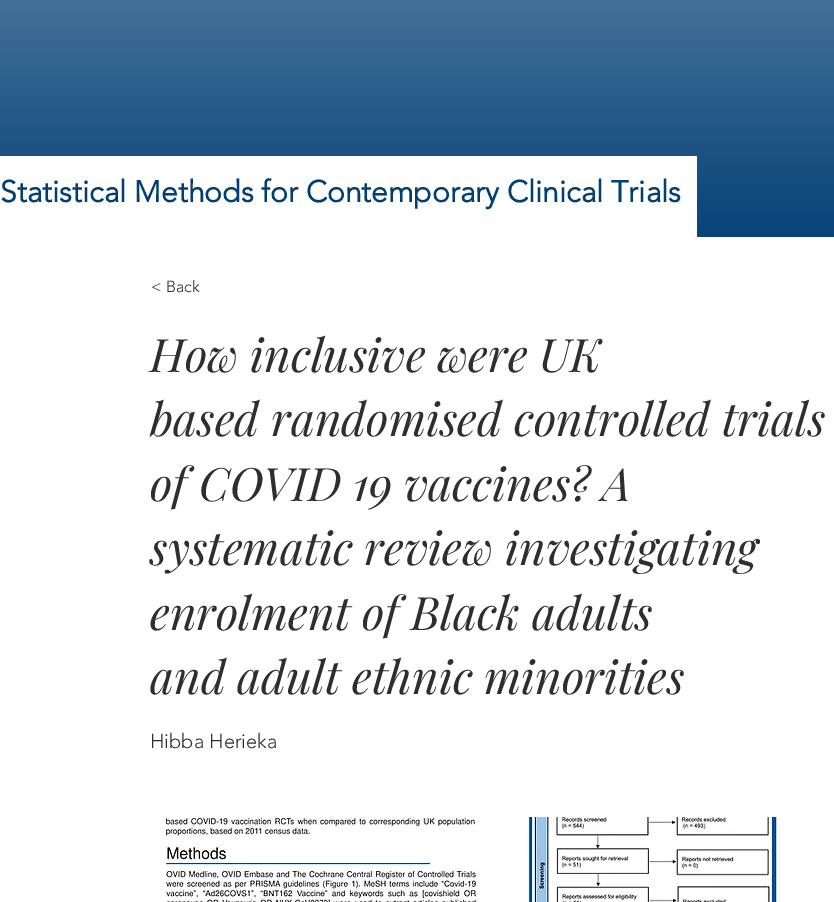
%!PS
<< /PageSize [834 902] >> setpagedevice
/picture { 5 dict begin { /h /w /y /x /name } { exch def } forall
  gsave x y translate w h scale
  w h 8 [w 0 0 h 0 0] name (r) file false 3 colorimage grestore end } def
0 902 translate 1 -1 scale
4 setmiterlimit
1 setgray
0 0 834 902 rectfill
0 0.243 0.455 setrgbcolor
0 0 834 237 rectfill
(img1.rgb) 0 0 834 237 picture
1 setgray
0 156 697 81 rectfill
/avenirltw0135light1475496-Bold [30 0 0 -30 0 0] selectfont
0 0.243 0.455 setrgbcolor
0 202 moveto (Statistical Methods for Contemporary Clinical Trials) show
/avenirltw0135light1475496-Light [16 0 0 -16 0 0] selectfont
0.184 0.18 0.18 setrgbcolor
151 292 moveto (< Back) show
/PlayfairDisplay-Italic [46 0 0 -46 0 0] selectfont
150 372 moveto (How inclusive were UK) show
150 436 moveto (based randomised controlled trials) show
150 501 moveto (of COVID 19 vaccines? A) show
150 565 moveto (systematic review investigating) show
150 630 moveto (enrolment of Black adults) show
150 694 moveto (and adult ethnic minorities) show
/avenirltw0135light1475496-Light [20 0 0 -20 0 0] selectfont
150 748 moveto (Hibba Herieka) show
(img2.rgb) 165 817 613 85 picture
showpage
